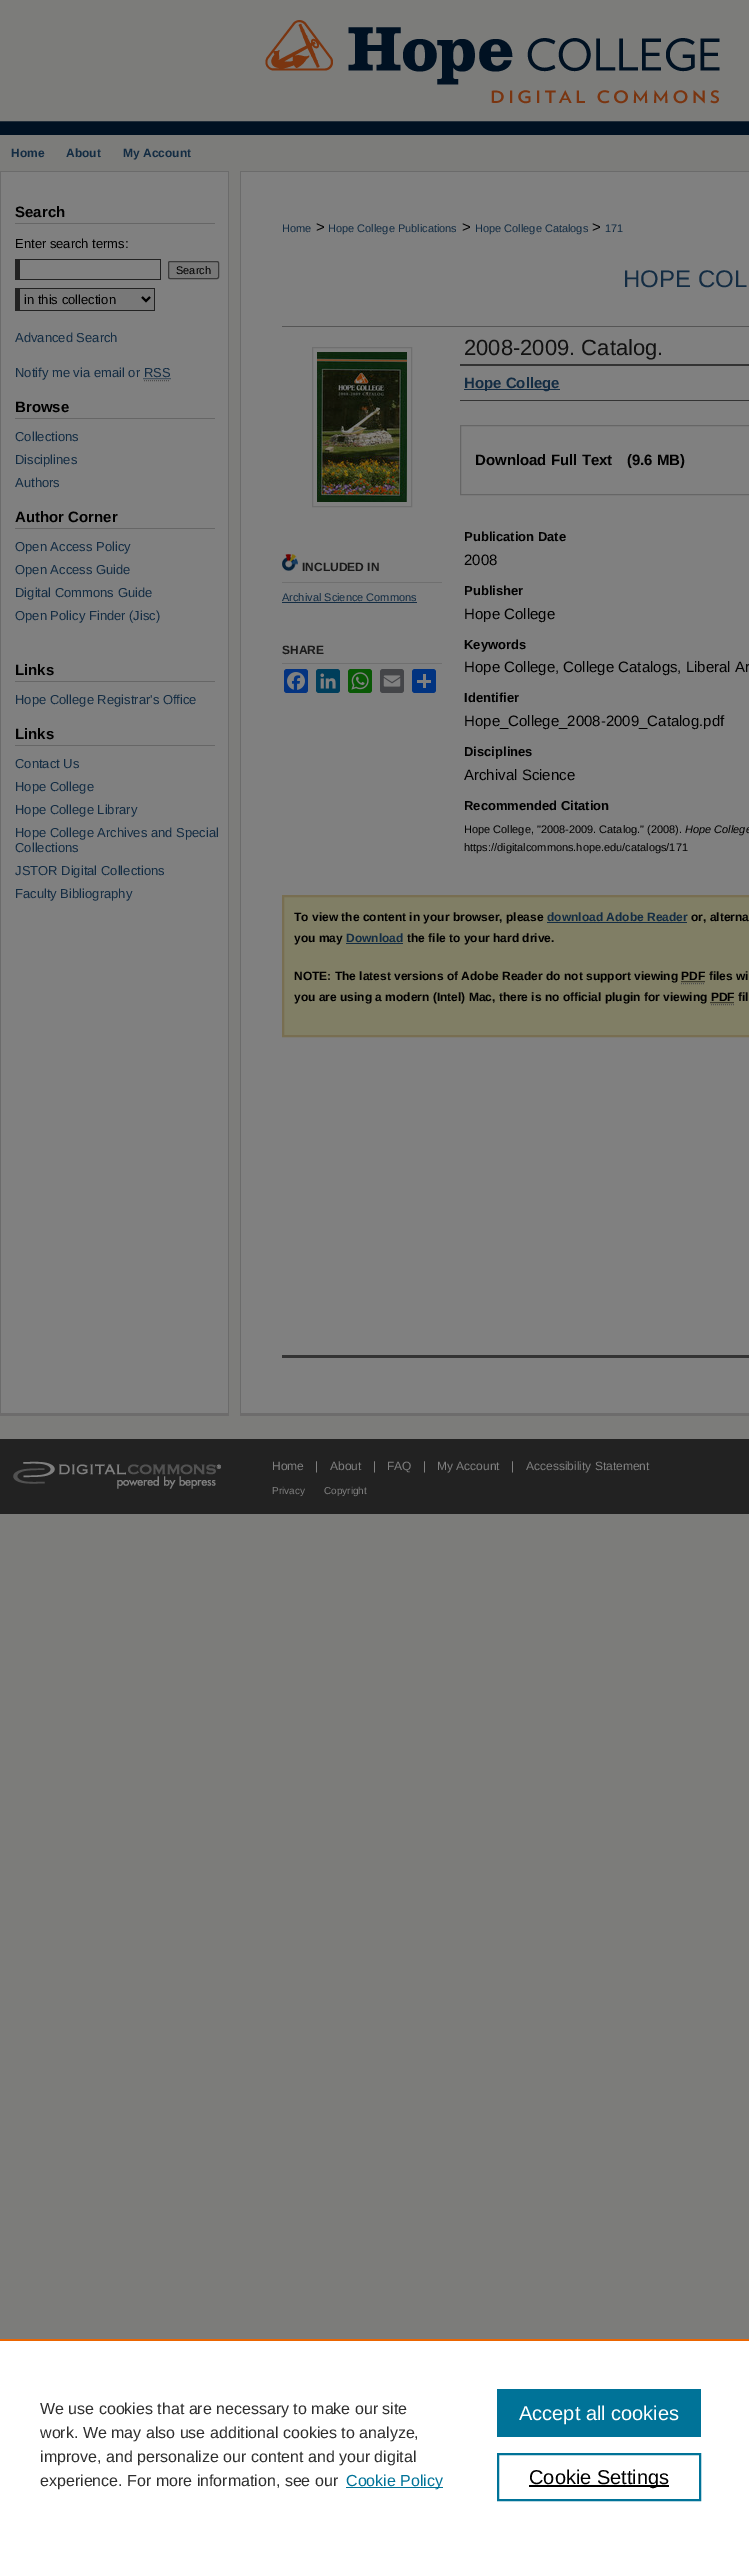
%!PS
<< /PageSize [749 2549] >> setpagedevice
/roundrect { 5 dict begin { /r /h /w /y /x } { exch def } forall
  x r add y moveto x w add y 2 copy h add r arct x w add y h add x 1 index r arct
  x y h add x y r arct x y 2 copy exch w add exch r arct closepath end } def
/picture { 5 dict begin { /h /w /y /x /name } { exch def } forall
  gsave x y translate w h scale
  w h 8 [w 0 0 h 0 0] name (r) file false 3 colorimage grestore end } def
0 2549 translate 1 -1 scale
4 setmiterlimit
0.486 0.486 0.478 setrgbcolor
0 0 749 2549 rectfill
(img1.rgb) 0 20 749 115 picture
/LiberationSans-Bold [12 0 0 -12 0 0] selectfont
0.075 0.173 0.263 setrgbcolor
11 157 moveto (Home) show
66 157 moveto (About) show
123 157 moveto (My Account) show
(img2.rgb) 0 171 749 1245 picture
0.4 setgray
15 223 200 1 rectfill
/LiberationSans-Bold [15 0 0 -15 0 0] selectfont
0 setgray
15 217 moveto (Search) show
/LiberationSans-Regular [13 0 0 -13 0 0] selectfont
15 248 moveto (Enter search terms:) show
0.133 setgray
15 259 146 1 rectfill
160 259 1 21 rectfill
15 279 146 1 rectfill
15 259 5 21 rectfill
0.471 setgray
168.5 261.5 50 17 1.5 roundrect gsave fill grestore
0.231 setgray
stroke
/LiberationSans-Regular [11 0 0 -11 0 0] selectfont
0 setgray
176 274 moveto (Search) show
0.471 setgray
20 289 134 21 rectfill
0.133 setgray
15 288 140 1 rectfill
154 288 1 23 rectfill
15 310 140 1 rectfill
15 288 5 23 rectfill
0 setgray
2 setlinewidth
newpath 142 297 moveto 146 301 lineto 150 297 lineto stroke
/LiberationSans-Regular [13 0 0 -13 0 0] selectfont
24 304 moveto (in this collection) show
0.075 0.173 0.263 setrgbcolor
15 342 moveto (Advanced Search) show
15 377 moveto (Notify me via email or RSS) show
1 setlinewidth
[1 1] 0 setdash
newpath 143.5 378.5 moveto 170.5 378.5 lineto stroke
0.302 setgray
newpath 144 380.5 moveto 170 380.5 lineto stroke
0.4 setgray
15 418 200 1 rectfill
/LiberationSans-Bold [15 0 0 -15 0 0] selectfont
0 setgray
15 412 moveto (Browse) show
/LiberationSans-Regular [13 0 0 -13 0 0] selectfont
0.075 0.173 0.263 setrgbcolor
15 441 moveto (Collections) show
15 464 moveto (Disciplines) show
15 487 moveto (Authors) show
0.4 setgray
15 528 200 1 rectfill
/LiberationSans-Bold [15 0 0 -15 0 0] selectfont
0 setgray
15 522 moveto (Author Corner) show
/LiberationSans-Regular [13 0 0 -13 0 0] selectfont
0.075 0.173 0.263 setrgbcolor
15 551 moveto (Open Access Policy) show
15 574 moveto (Open Access Guide) show
15 597 moveto (Digital Commons Guide) show
15 620 moveto (Open Policy Finder \(Jisc\)) show
0.4 setgray
15 681 200 1 rectfill
/LiberationSans-Bold [15 0 0 -15 0 0] selectfont
0 setgray
15 675 moveto (Links) show
/LiberationSans-Regular [13 0 0 -13 0 0] selectfont
0.075 0.173 0.263 setrgbcolor
15 704 moveto (Hope College Registrar's Office) show
0.4 setgray
15 745 200 1 rectfill
/LiberationSans-Bold [15 0 0 -15 0 0] selectfont
0 setgray
15 739 moveto (Links) show
/LiberationSans-Regular [13 0 0 -13 0 0] selectfont
0.075 0.173 0.263 setrgbcolor
15 768 moveto (Contact Us) show
15 791 moveto (Hope College) show
15 814 moveto (Hope College Library) show
15 837 moveto (Hope College Archives and Special) show
15 852 moveto (Collections) show
15 875 moveto (JSTOR Digital Collections) show
15 898 moveto (Faculty Bibliography) show
/LiberationSans-Regular [11 0 0 -11 0 0] selectfont
282 232 moveto (Home) show
/LiberationSans-Regular [15 0 0 -15 0 0] selectfont
0 setgray
316 232 moveto (>) show
/LiberationSans-Regular [11 0 0 -11 0 0] selectfont
0.075 0.173 0.263 setrgbcolor
328 232 moveto (Hope College Publications) show
/LiberationSans-Regular [15 0 0 -15 0 0] selectfont
0 setgray
462 232 moveto (>) show
/LiberationSans-Regular [11 0 0 -11 0 0] selectfont
0.075 0.173 0.263 setrgbcolor
475 232 moveto (Hope College Catalogs) show
/LiberationSans-Regular [15 0 0 -15 0 0] selectfont
0 setgray
592 232 moveto (>) show
/LiberationSans-Regular [11 0 0 -11 0 0] selectfont
0.075 0.173 0.263 setrgbcolor
605 232 moveto (171) show
/LiberationSans-Regular [24 0 0 -24 0 0] selectfont
623 287 moveto (HOPE COL) show
0.435 setgray
[] 0 setdash
312.5 347.5 99 159 rectstroke
(img3.rgb) 317 352 90 150 picture
(img4.rgb) 282 554 16 17 picture
282 582 160 1 rectfill
/LiberationSans-Bold [12 0 0 -12 0 0] selectfont
0.102 setgray
302 571 moveto (INCLUDED IN) show
/LiberationSans-Regular [11 0 0 -11 0 0] selectfont
0.075 0.173 0.263 setrgbcolor
282 601 moveto (Archival Science Commons) show
282 602 135 1 rectfill
0.435 setgray
282 663 160 1 rectfill
/LiberationSans-Bold [12 0 0 -12 0 0] selectfont
0.102 setgray
282 654 moveto (SHARE) show
0.016 0.2 0.502 setrgbcolor
284 669 24 24 3 roundrect fill
(img5.rgb) 287 672 18 18 picture
0 0.243 0.357 setrgbcolor
316 669 24 24 3 roundrect fill
(img6.rgb) 320 673 16 16 picture
0.035 0.345 0.02 setrgbcolor
348 669 24 24 3 roundrect fill
(img7.rgb) 351 672 18 18 picture
0.267 0.271 0.282 setrgbcolor
380 669 24 24 3 roundrect fill
(img8.rgb) 383 675 18 12 picture
0.004 0.2 0.502 setrgbcolor
412 669 24 24 3 roundrect fill
0.502 setgray
423 674 3 14 rectfill
417 680 14 3 rectfill
0.333 setgray
282 326 467 1 rectfill
/LiberationSans-Regular [22 0 0 -22 0 0] selectfont
0.067 setgray
464 355 moveto (2008-2009. Catalog.) show
0.2 setgray
460 364 289 2 rectfill
460 400 289 1 rectfill
0.075 0.173 0.263 setrgbcolor
464 389 96 1 rectfill
/LiberationSans-Bold [15 0 0 -15 0 0] selectfont
464 388 moveto (Hope College) show
0.4 setgray
460.5 425.5 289 69 rectstroke
0 setgray
475 465 moveto (Download Full Text) show
627 465 moveto (\(9.6 MB\)) show
/LiberationSans-Bold [13 0 0 -13 0 0] selectfont
464 541 moveto (Publication Date) show
/LiberationSans-Regular [15 0 0 -15 0 0] selectfont
464 565 moveto (2008) show
/LiberationSans-Bold [13 0 0 -13 0 0] selectfont
464 595 moveto (Publisher) show
/LiberationSans-Regular [15 0 0 -15 0 0] selectfont
464 619 moveto (Hope College) show
/LiberationSans-Bold [13 0 0 -13 0 0] selectfont
464 649 moveto (Keywords) show
/LiberationSans-Regular [15 0 0 -15 0 0] selectfont
464 672 moveto (Hope College, College Catalogs, Liberal Ar) show
/LiberationSans-Bold [13 0 0 -13 0 0] selectfont
464 702 moveto (Identifier) show
/LiberationSans-Regular [15 0 0 -15 0 0] selectfont
464 726 moveto (Hope_College_2008-2009_Catalog.pdf) show
/LiberationSans-Bold [13 0 0 -13 0 0] selectfont
464 756 moveto (Disciplines) show
/LiberationSans-Regular [15 0 0 -15 0 0] selectfont
464 780 moveto (Archival Science) show
/LiberationSans-Bold [13 0 0 -13 0 0] selectfont
464 810 moveto (Recommended Citation) show
/LiberationSans-Regular [11 0 0 -11 0 0] selectfont
464 833 moveto (Hope College, "2008-2009. Catalog." \(2008\).) show
/LiberationSans-Italic [11 0 0 -11 0 0] selectfont
685 833 moveto (Hope College) show
/LiberationSans-Regular [11 0 0 -11 0 0] selectfont
464 851 moveto (https://digitalcommons.hope.edu/catalogs/171) show
0.2 setgray
282 1355 467 3 rectfill
0.502 0.494 0.396 setrgbcolor
newpath 283 896 moveto 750 896 lineto 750 1036 lineto 283 1036 lineto closepath gsave fill grestore
0.471 0.431 0.318 setrgbcolor
2 setlinewidth
stroke
/LiberationSans-Bold [12 0 0 -12 0 0] selectfont
0 setgray
294 921 moveto (To view the content in your browser, please) show
0.075 0.173 0.263 setrgbcolor
547 921 moveto (download Adobe Reader) show
547 922 140 1 rectfill
0 setgray
691 921 moveto (or, alterna) show
294 942 moveto (you may) show
0.075 0.173 0.263 setrgbcolor
346 942 moveto (Download) show
346 943 57 1 rectfill
0 setgray
407 942 moveto (the file to your hard drive.) show
294 980 moveto (NOTE: The latest versions of Adobe Reader do not support viewing PDF files wi) show
1 setlinewidth
[1 1] 0 setdash
newpath 681.5 981.5 moveto 705.5 981.5 lineto stroke
0.302 setgray
newpath 681 983.5 moveto 705 983.5 lineto stroke
0 setgray
294 1001 moveto (you are using a modern \(Intel\) Mac, there is no official plugin for viewing PDF fil) show
newpath 710.5 1002.5 moveto 734.5 1002.5 lineto stroke
0.302 setgray
newpath 711 1004.5 moveto 735 1004.5 lineto stroke
0.133 setgray
0 1439 749 75 rectfill
(img9.rgb) 13 1461 208 28 picture
/LiberationSans-Regular [12 0 0 -12 0 0] selectfont
0.502 setgray
272 1470 moveto (Home) show
315 1470 moveto (|) show
330 1470 moveto (About) show
373 1470 moveto (|) show
387 1470 moveto (FAQ) show
423 1470 moveto (|) show
437 1470 moveto (My Account) show
511 1470 moveto (|) show
526 1470 moveto (Accessibility Statement) show
/LiberationSans-Regular [10 0 0 -10 0 0] selectfont
272 1494 moveto (Privacy) show
324 1494 moveto (Copyright) show
1 setgray
0 2341 749 208 rectfill
0.922 0.396 0 setrgbcolor
0 2339 749 2 rectfill
/LiberationSans-Regular [16 0 0 -16 0 0] selectfont
0.18 setgray
40 2414 moveto (We use cookies that are necessary to make our site) show
40 2438 moveto (work. We may also use additional cookies to analyze,) show
40 2462 moveto (improve, and personalize our content and your digital) show
40 2486 moveto (experience. For more information, see our) show
0 0.451 0.596 setrgbcolor
346 2487 97 1 rectfill
346 2486 moveto (Cookie Policy) show
497 2389 204 48 rectfill
/LiberationSans-Regular [20 0 0 -20 0 0] selectfont
1 setgray
519 2420 moveto (Accept all cookies) show
0 0.451 0.596 setrgbcolor
2 setlinewidth
[] 0 setdash
498 2454 202 46 rectstroke
0 setgray
529 2485 140 2 rectfill
529 2484 moveto (Cookie Settings) show
showpage
